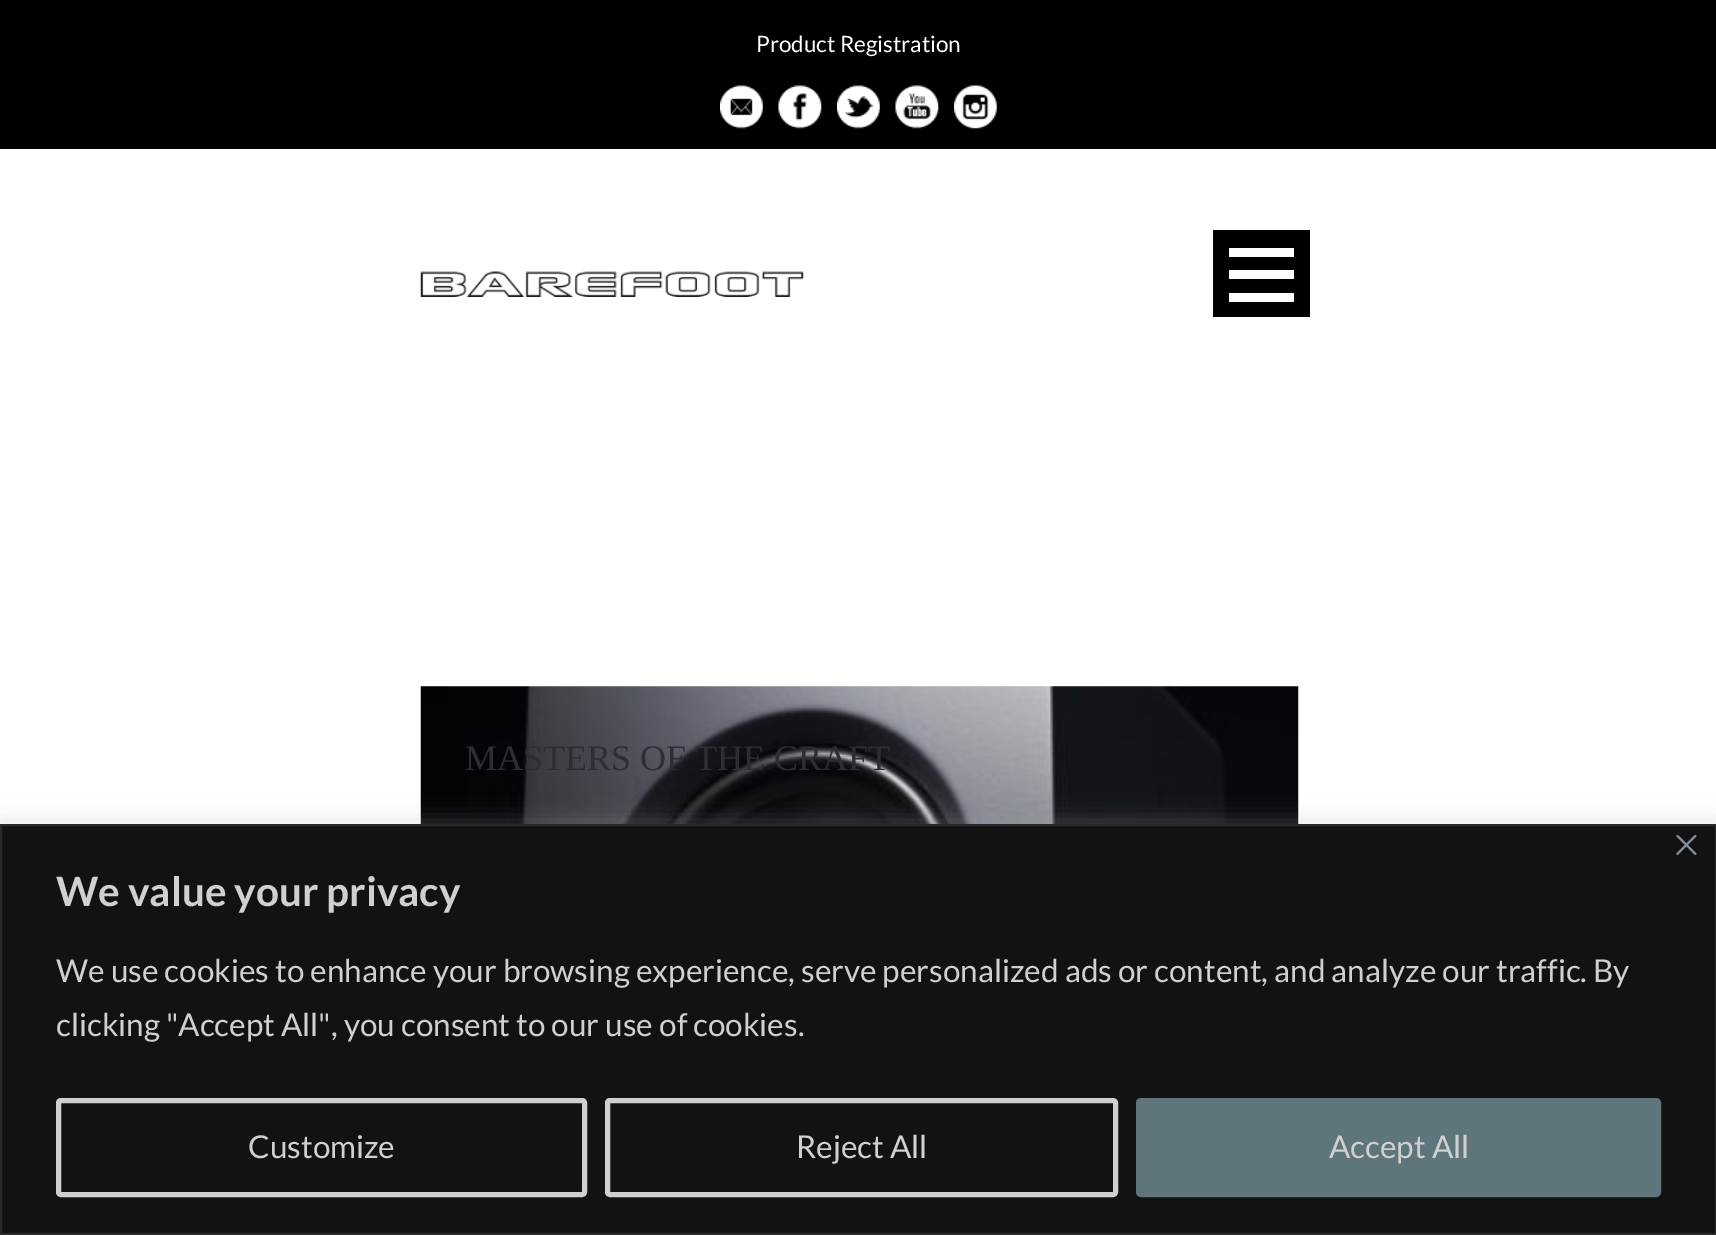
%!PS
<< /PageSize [1716 1235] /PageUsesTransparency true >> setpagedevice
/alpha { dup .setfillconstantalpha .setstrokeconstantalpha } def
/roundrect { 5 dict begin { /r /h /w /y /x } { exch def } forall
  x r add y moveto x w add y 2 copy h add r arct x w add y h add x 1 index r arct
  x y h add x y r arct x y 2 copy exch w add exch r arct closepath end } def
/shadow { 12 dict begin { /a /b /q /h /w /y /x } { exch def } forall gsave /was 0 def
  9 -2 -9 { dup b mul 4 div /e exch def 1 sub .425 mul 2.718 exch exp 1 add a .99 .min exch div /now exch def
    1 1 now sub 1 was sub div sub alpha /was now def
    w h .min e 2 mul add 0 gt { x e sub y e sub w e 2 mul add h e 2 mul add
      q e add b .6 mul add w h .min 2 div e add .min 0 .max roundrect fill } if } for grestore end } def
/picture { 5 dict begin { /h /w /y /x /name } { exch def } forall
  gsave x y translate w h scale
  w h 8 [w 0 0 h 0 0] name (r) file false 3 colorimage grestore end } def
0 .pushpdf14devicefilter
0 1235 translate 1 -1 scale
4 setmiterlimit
1 setgray
0 0 1716 1235 rectfill
0 setgray
0 0 1716 149 rectfill
/Lato-Regular [22.5 0 0 -22.5 0 0] selectfont
1 setgray
756 52 moveto (Product Registration) show
(img1.rgb) 720 85 43 44 picture
(img2.rgb) 778 85 44 44 picture
(img3.rgb) 837 85 43 44 picture
(img4.rgb) 895 85 44 44 picture
(img5.rgb) 954 85 43 44 picture
(img6.rgb) 420 271 384 26 picture
0 setgray
1213 230 97 87 rectfill
1 setgray
1229 293 65 9 rectfill
1229 270 65 9 rectfill
1229 248 65 9 rectfill
(img7.rgb) 420 686 879 138 picture
/LiberationSerif-Regular [36 0 0 -36 0 0] selectfont
0.176 0.18 0.2 setrgbcolor
465 770 moveto (MASTERS OF THE CRAFT) show
0.675 0.671 0.671 setrgbcolor
0 821 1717 412 0 11 0.3 shadow
0.071 setgray
newpath 1 825 moveto 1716 825 lineto 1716 1234 lineto 1 1234 lineto closepath gsave fill grestore
0.165 setgray
2 setlinewidth
stroke
(img8.rgb) 1676 835 21 20 picture
/Lato-Bold [40.5 0 0 -40.5 0 0] selectfont
0.816 setgray
56 906 moveto (We value your privacy) show
/Lato-Regular [31.5 0 0 -31.5 0 0] selectfont
56 982 moveto (We use cookies to enhance your browsing experience, serve personalized ads or content, and analyze our traffic. By) show
56 1036 moveto (clicking "Accept All", you consent to our use of cookies.) show
5 setlinewidth
58.5 1100.5 526 94 2.5 roundrect stroke
248 1158 moveto (Customize) show
607.5 1100.5 508 94 2.5 roundrect stroke
796 1158 moveto (Reject All) show
0.369 0.459 0.486 setrgbcolor
1138.5 1100.5 520 94 2.5 roundrect gsave fill grestore
stroke
0.816 setgray
1329 1158 moveto (Accept All) show
.poppdf14devicefilter showpage
